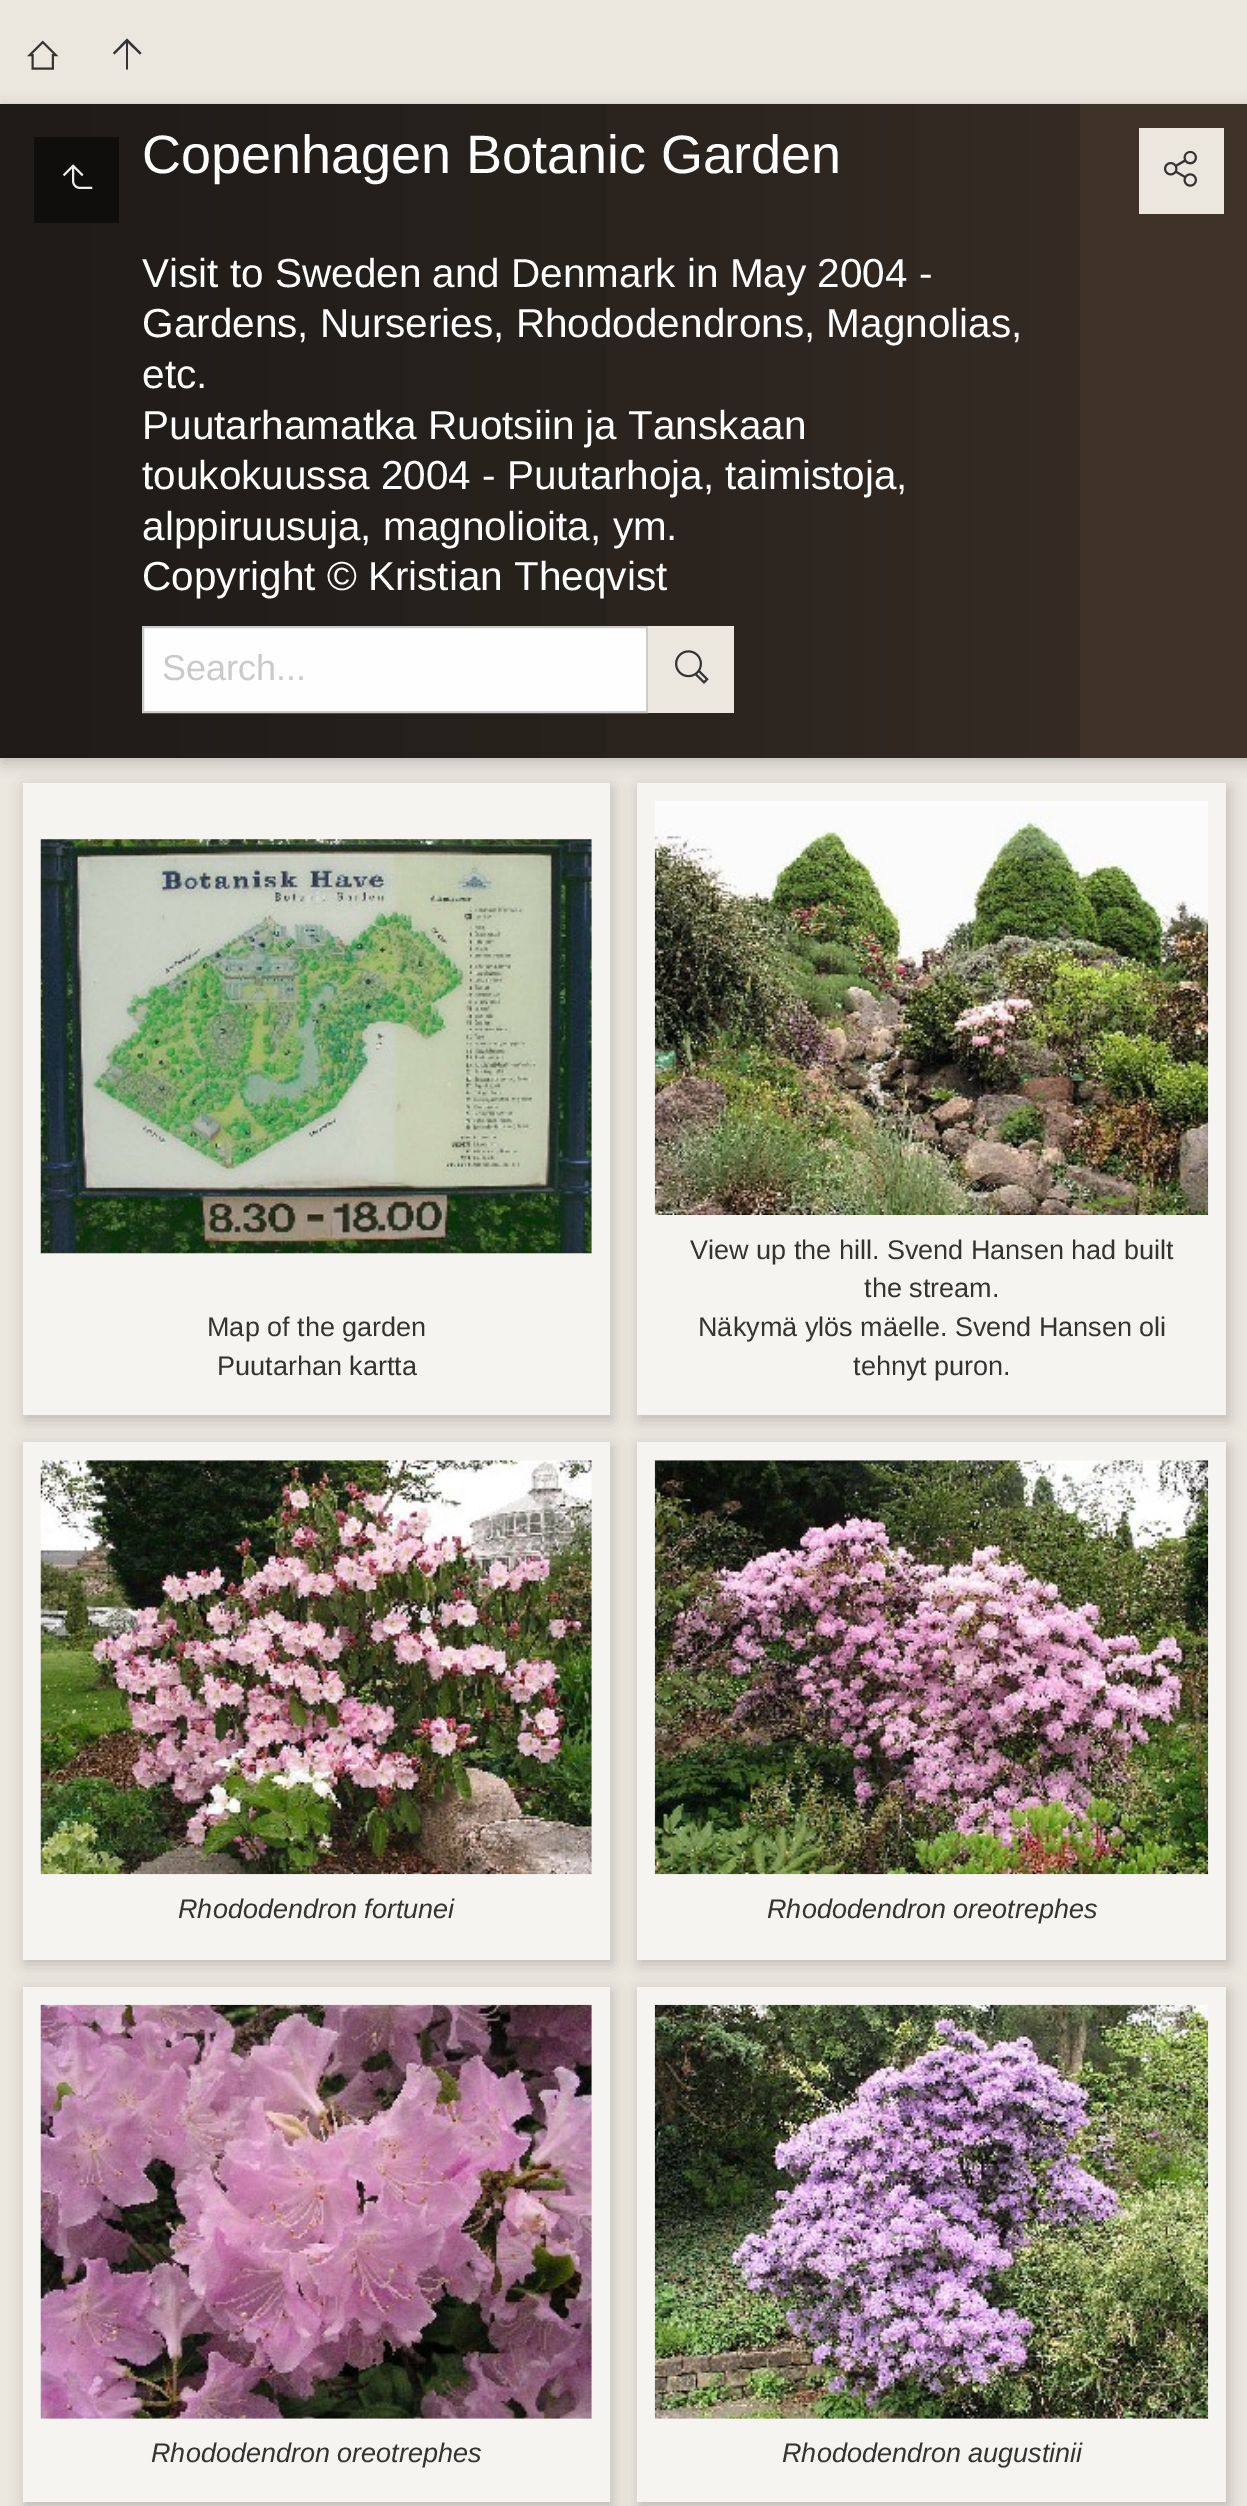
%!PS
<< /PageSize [1247 2506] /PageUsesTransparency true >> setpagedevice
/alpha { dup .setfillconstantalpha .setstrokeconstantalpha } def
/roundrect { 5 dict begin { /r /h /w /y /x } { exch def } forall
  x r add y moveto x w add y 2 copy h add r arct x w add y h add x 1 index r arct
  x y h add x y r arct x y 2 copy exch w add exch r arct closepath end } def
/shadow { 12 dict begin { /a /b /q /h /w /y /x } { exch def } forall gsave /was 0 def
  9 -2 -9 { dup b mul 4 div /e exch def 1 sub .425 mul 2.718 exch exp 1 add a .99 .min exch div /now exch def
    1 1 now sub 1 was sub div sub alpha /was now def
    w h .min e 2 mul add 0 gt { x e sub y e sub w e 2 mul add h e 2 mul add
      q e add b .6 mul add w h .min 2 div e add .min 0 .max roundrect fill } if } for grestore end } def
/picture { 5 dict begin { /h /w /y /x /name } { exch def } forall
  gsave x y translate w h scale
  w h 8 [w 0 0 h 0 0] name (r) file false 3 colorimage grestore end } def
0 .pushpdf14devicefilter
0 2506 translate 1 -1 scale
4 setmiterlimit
0.922 0.906 0.875 setrgbcolor
0 0 1247 2506 rectfill
(img1.rgb) 27 40 32 30 picture
0.2 setgray
newpath 128 69.5 moveto 128 43 lineto 140 54.5 lineto 141.5 53 lineto 127 38.5 lineto 113 53 lineto 114.5 54.5 lineto 126 43 lineto 126 69.5 lineto closepath fill
0 setgray
2 108 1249 655 0 7 0.19 shadow
0.243 0.196 0.161 setrgbcolor
1080 104 167 654 rectfill
gsave newpath 0 104 moveto 1080 104 lineto 1080 758 lineto 0 758 lineto closepath clip newpath
<< /ShadingType 2 /ColorSpace /DeviceRGB /Coords [0 431 1080 431] /Extend [true true] /Function << /FunctionType 3 /Domain [0 1] /Functions [<< /FunctionType 2 /Domain [0 1] /C0 [0.122 0.106 0.094] /C1 [0.165 0.137 0.118] /N 1 >> << /FunctionType 2 /Domain [0 1] /C0 [0.165 0.137 0.118] /C1 [0.208 0.169 0.141] /N 1 >>] /Bounds [0.6] /Encode [0 1 0 1] >> >> shfill grestore
0.063 0.055 0.047 setrgbcolor
34 137 85 86 rectfill
(img2.rgb) 62 164 31 25 picture
/LiberationSans-Regular [54 0 0 -54 0 0] selectfont
1 setgray
142 173 moveto (Copenhagen Botanic Garden) show
/LiberationSans-Regular [40.5 0 0 -40.5 0 0] selectfont
142 287 moveto (Visit to Sweden and Denmark in May 2004 -) show
142 337 moveto (Gardens, Nurseries, Rhododendrons, Magnolias,) show
142 388 moveto (etc.) show
142 439 moveto (Puutarhamatka Ruotsiin ja Tanskaan) show
142 489 moveto (toukokuussa 2004 - Puutarhoja, taimistoja,) show
142 540 moveto (alppiruusuja, magnolioita, ym.) show
142 590 moveto (Copyright © Kristian Theqvist) show
0.996 setgray
newpath 143 627 moveto 647 627 lineto 647 712 lineto 143 712 lineto closepath gsave fill grestore
0.792 setgray
2 setlinewidth
stroke
/LiberationSans-Regular [36 0 0 -36 0 0] selectfont
162 680 moveto (Search...) show
0.922 0.906 0.875 setrgbcolor
648 626 86 87 rectfill
(img3.rgb) 675 650 34 34 picture
1139 128 85 86 rectfill
(img4.rgb) 1164 150 33 37 picture
gsave
newpath 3 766 moveto 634 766 lineto 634 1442 lineto 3 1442 lineto closepath 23 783 moveto 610 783 lineto 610 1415 lineto 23 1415 lineto closepath eoclip newpath
0 setgray
25 788 587 632 0 7 0.19 shadow
grestore
0.53 alpha
1 setgray
23 783 587 632 rectfill
1 alpha
(img5.rgb) 40 839 552 415 picture
/LiberationSans-Regular [27 0 0 -27 0 0] selectfont
0.2 setgray
207 1336 moveto (Map of the garden) show
217 1375 moveto (Puutarhan kartta) show
0 setgray
639 788 590 632 0 7 0.19 shadow
0.965 0.957 0.941 setrgbcolor
637 783 589 632 rectfill
(img6.rgb) 654 801 555 414 picture
0.2 setgray
690 1259 moveto (View up the hill. Svend Hansen had built) show
864 1297 moveto (the stream.) show
698 1336 moveto (Näkymä ylös mäelle. Svend Hansen oli) show
853 1375 moveto (tehnyt puron.) show
gsave
newpath 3 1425 moveto 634 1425 lineto 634 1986 lineto 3 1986 lineto closepath 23 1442 moveto 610 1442 lineto 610 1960 lineto 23 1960 lineto closepath eoclip newpath
0 setgray
25 1447 587 517 0 7 0.19 shadow
grestore
0.53 alpha
1 setgray
23 1442 587 518 rectfill
1 alpha
(img7.rgb) 40 1460 552 415 picture
/LiberationSans-Italic [27 0 0 -27 0 0] selectfont
0.2 setgray
178 1918 moveto (Rhododendron fortunei) show
gsave
newpath 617 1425 moveto 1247 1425 lineto 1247 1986 lineto 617 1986 lineto closepath 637 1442 moveto 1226 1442 lineto 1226 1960 lineto 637 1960 lineto closepath eoclip newpath
0 setgray
639 1447 590 517 0 7 0.19 shadow
grestore
0.53 alpha
1 setgray
637 1442 589 518 rectfill
1 alpha
(img8.rgb) 654 1460 555 415 picture
0.2 setgray
767 1918 moveto (Rhododendron oreotrephes) show
gsave
newpath 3 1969 moveto 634 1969 lineto 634 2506 lineto 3 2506 lineto closepath 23 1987 moveto 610 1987 lineto 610 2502 lineto 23 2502 lineto closepath eoclip newpath
0 setgray
25 1991 587 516 0 7 0.19 shadow
grestore
0.53 alpha
1 setgray
23 1987 587 515 rectfill
1 alpha
(img9.rgb) 40 2004 552 415 picture
0.2 setgray
151 2462 moveto (Rhododendron oreotrephes) show
0 setgray
639 1991 590 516 0 7 0.19 shadow
0.965 0.957 0.941 setrgbcolor
637 1987 589 515 rectfill
(img10.rgb) 654 2004 555 415 picture
0.2 setgray
782 2462 moveto (Rhododendron augustinii) show
.poppdf14devicefilter showpage
